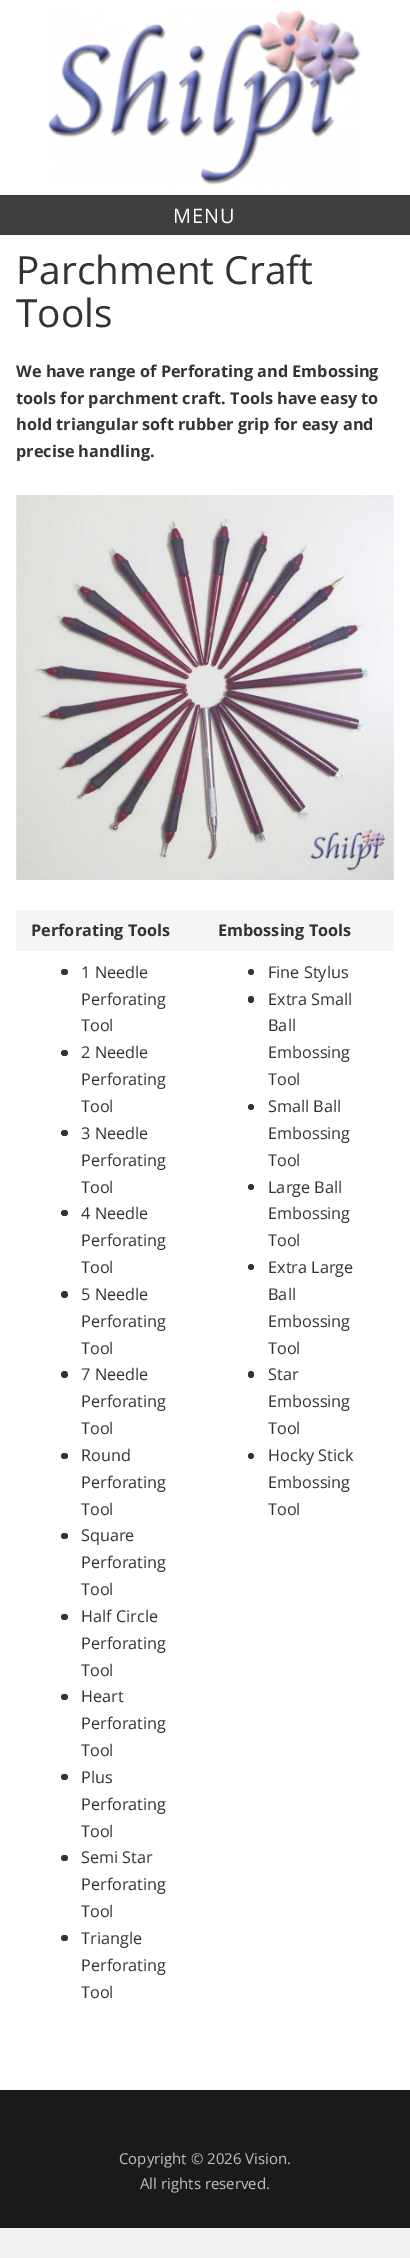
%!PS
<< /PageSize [410 2258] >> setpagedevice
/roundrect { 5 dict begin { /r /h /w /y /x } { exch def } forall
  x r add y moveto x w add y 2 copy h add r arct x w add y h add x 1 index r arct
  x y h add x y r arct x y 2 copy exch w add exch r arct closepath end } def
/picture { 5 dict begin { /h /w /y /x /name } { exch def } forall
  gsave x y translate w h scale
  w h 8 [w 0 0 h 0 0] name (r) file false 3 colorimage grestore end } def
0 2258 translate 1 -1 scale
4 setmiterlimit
0.945 setgray
0 0 410 2258 rectfill
1 setgray
0 0 410 195 rectfill
(img1.rgb) 48 10 313 175 picture
0.247 setgray
0 195 410 40 rectfill
/OpenSans-Regular [20 0 0 -20 0 0] selectfont
1 setgray
173 223 moveto 1 0 (MENU) ashow
0 235 410 1855 rectfill
/OpenSans-Regular [38.75 0 0 -38.75 0 0] selectfont
0.2 setgray
16 284 moveto (Parchment Craft) show
16 327 moveto (Tools) show
/OpenSans-Bold [16.25 0 0 -16.25 0 0] selectfont
16 377 moveto (We have range of Perforating and Embossing) show
16 404 moveto (tools for parchment craft. Tools have easy to) show
16 430 moveto (hold triangular soft rubber grip for easy and) show
16 457 moveto (precise handling.) show
(img2.rgb) 16 495 378 385 picture
0.961 setgray
16 910 378 41 rectfill
0.2 setgray
31 936 moveto (Perforating Tools) show
218 936 moveto (Embossing Tools) show
61 969 7 6 3 roundrect fill
/OpenSans-Regular [16.25 0 0 -16.25 0 0] selectfont
81 978 moveto (1 Needle) show
81 1005 moveto (Perforating) show
81 1031 moveto (Tool) show
61 1050 7 6 3 roundrect fill
81 1058 moveto (2 Needle) show
81 1085 moveto (Perforating) show
81 1112 moveto (Tool) show
61 1130 7 6 3 roundrect fill
81 1139 moveto (3 Needle) show
81 1166 moveto (Perforating) show
81 1193 moveto (Tool) show
61 1210 7 6 3 roundrect fill
81 1219 moveto (4 Needle) show
81 1246 moveto (Perforating) show
81 1273 moveto (Tool) show
newpath 64.5 1294.5 3.5 0 360 arc closepath fill
81 1300 moveto (5 Needle) show
81 1327 moveto (Perforating) show
81 1354 moveto (Tool) show
newpath 64.5 1374.5 3.5 0 360 arc closepath fill
81 1380 moveto (7 Needle) show
81 1407 moveto (Perforating) show
81 1434 moveto (Tool) show
61 1453 7 6 3 roundrect fill
81 1461 moveto (Round) show
81 1488 moveto (Perforating) show
81 1515 moveto (Tool) show
61 1533 7 6 3 roundrect fill
81 1541 moveto (Square) show
81 1568 moveto (Perforating) show
81 1595 moveto (Tool) show
61 1614 7 6 3 roundrect fill
81 1622 moveto (Half Circle) show
81 1649 moveto (Perforating) show
81 1676 moveto (Tool) show
61 1694 7 6 3 roundrect fill
81 1702 moveto (Heart) show
81 1729 moveto (Perforating) show
81 1756 moveto (Tool) show
61 1774 7 6 3 roundrect fill
81 1783 moveto (Plus) show
81 1810 moveto (Perforating) show
81 1837 moveto (Tool) show
61 1855 7 6 3 roundrect fill
81 1863 moveto (Semi Star) show
81 1890 moveto (Perforating) show
81 1917 moveto (Tool) show
61 1935 7 6 3 roundrect fill
81 1944 moveto (Triangle) show
81 1971 moveto (Perforating) show
81 1998 moveto (Tool) show
newpath 251 972 3 0 360 arc closepath fill
268 978 moveto (Fine Stylus) show
248 996 6 7 3 roundrect fill
268 1005 moveto (Extra Small) show
268 1031 moveto (Ball) show
268 1058 moveto (Embossing) show
268 1085 moveto (Tool) show
newpath 251 1107 3 0 360 arc closepath fill
268 1112 moveto (Small Ball) show
268 1139 moveto (Embossing) show
268 1166 moveto (Tool) show
newpath 251 1187 3 0 360 arc closepath fill
268 1193 moveto (Large Ball) show
268 1219 moveto (Embossing) show
268 1246 moveto (Tool) show
newpath 251 1267 3 0 360 arc closepath fill
268 1273 moveto (Extra Large) show
268 1300 moveto (Ball) show
268 1327 moveto (Embossing) show
268 1354 moveto (Tool) show
248 1371 6 7 3 roundrect fill
268 1380 moveto (Star) show
268 1407 moveto (Embossing) show
268 1434 moveto (Tool) show
newpath 251 1456 3 0 360 arc closepath fill
268 1461 moveto (Hocky Stick) show
268 1488 moveto (Embossing) show
268 1515 moveto (Tool) show
0.098 0.102 0.11 setrgbcolor
0 2090 410 138 rectfill
/OpenSans-Regular [15 0 0 -15 0 0] selectfont
0.761 setgray
119 2164 moveto (Copyright © 2026 Vision.) show
140 2189 moveto (All rights reserved.) show
showpage
